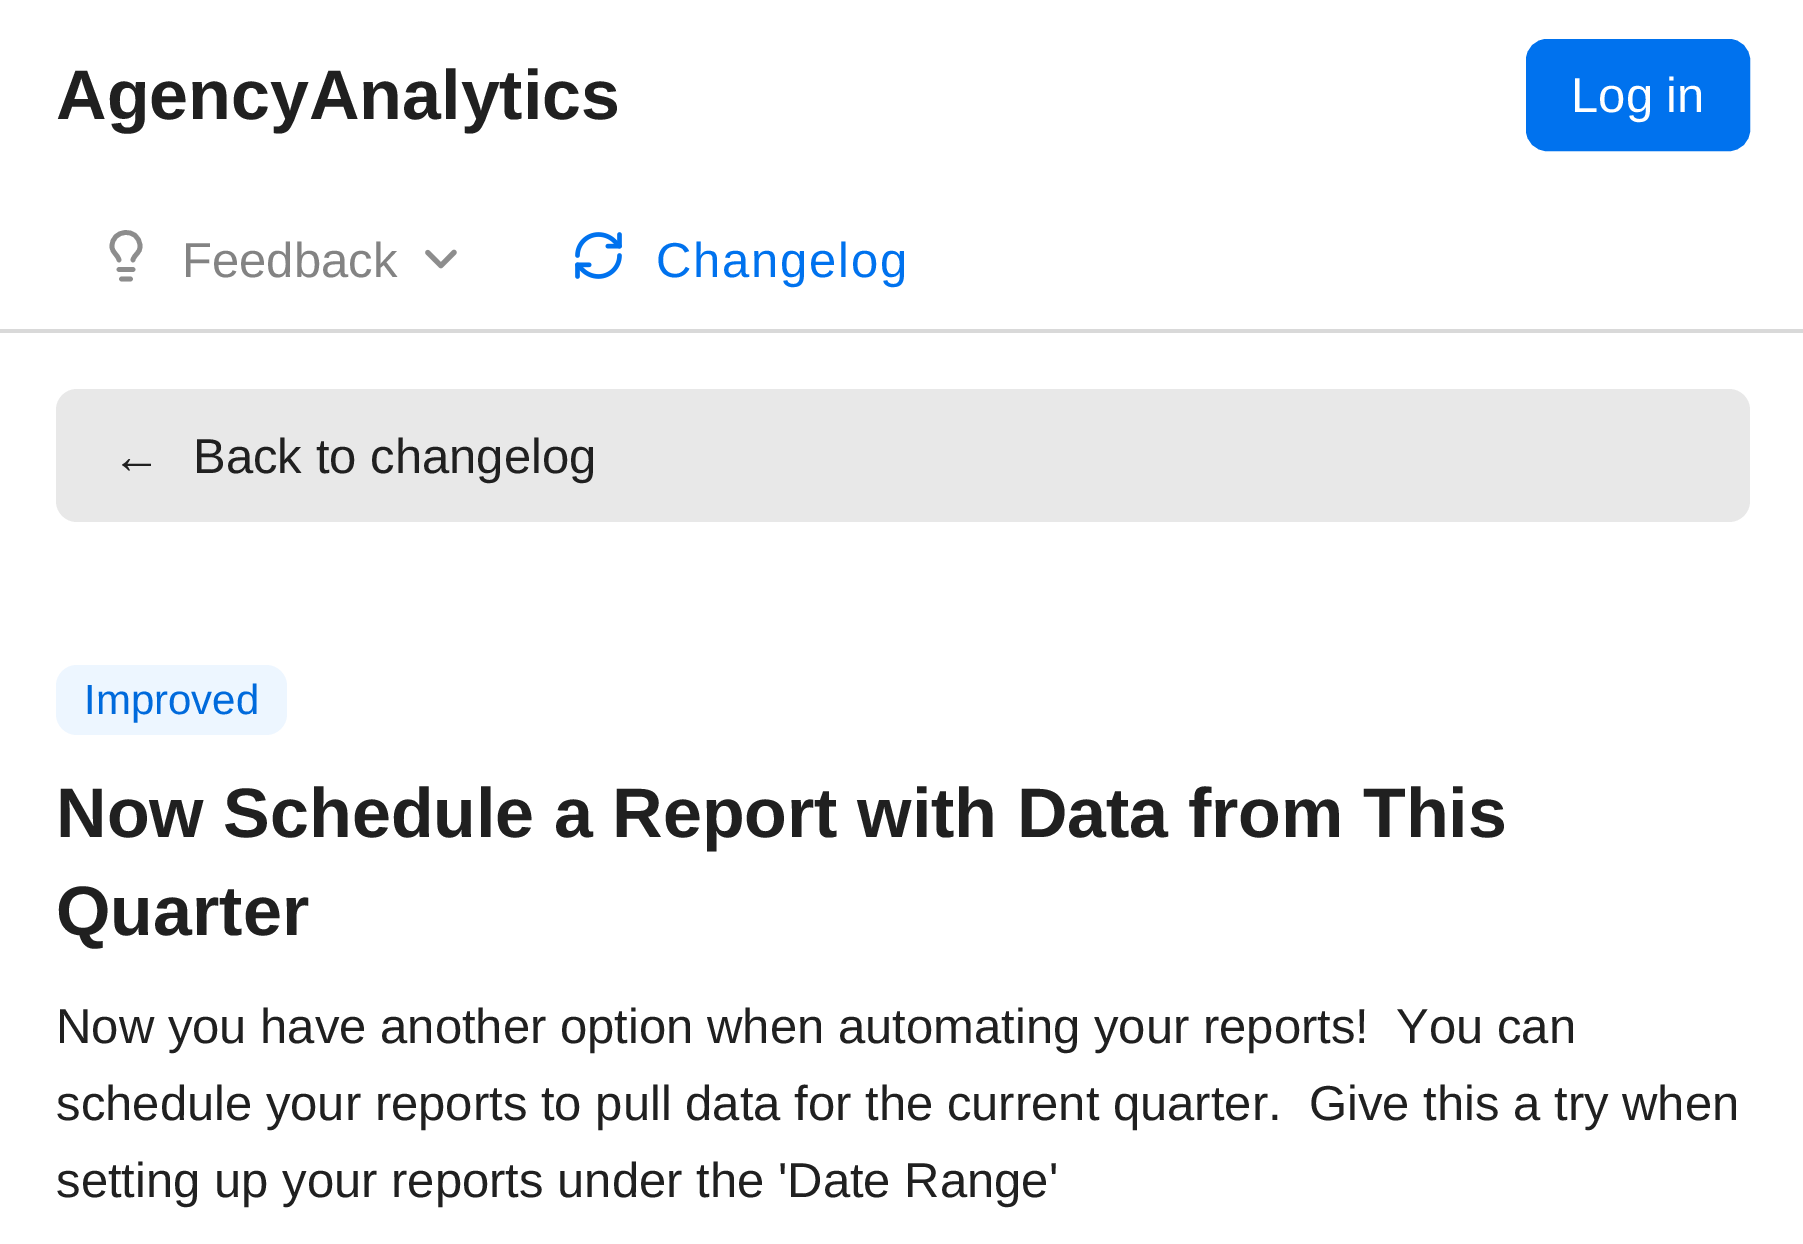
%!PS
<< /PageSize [1803 1244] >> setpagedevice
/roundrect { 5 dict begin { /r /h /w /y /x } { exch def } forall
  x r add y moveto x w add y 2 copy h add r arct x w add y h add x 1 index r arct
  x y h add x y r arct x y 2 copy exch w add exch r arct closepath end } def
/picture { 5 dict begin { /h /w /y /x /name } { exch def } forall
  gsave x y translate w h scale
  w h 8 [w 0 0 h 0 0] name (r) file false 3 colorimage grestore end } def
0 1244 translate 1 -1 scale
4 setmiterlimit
1 setgray
0 0 1803 1244 rectfill
0.851 setgray
0 329 1803 4 rectfill
/LiberationSans-Bold [70 0 0 -70 0 0] selectfont
0.125 setgray
56 119 moveto (AgencyAnalytics) show
0 0.447 0.933 setrgbcolor
1528 41 220 108 19 roundrect gsave fill grestore
4 setlinewidth
stroke
/LiberationSans-Regular [49 0 0 -49 0 0] selectfont
1 setgray
1571 112 moveto (Log in) show
0.553 setgray
4.7 setlinewidth
1 setlinecap
1 setlinejoin
newpath 133 260 moveto 134 254.5 140.5 253 140 246 curveto 139 226.5 111 229 112 247 curveto 112.5 253 118 255 119 260 curveto 119 269.5 moveto 133 269.5 lineto 121.5 279 moveto 130.5 279 lineto stroke
0.514 setgray
182 277 moveto (Feedback) show
(img1.rgb) 425 249 32 20 picture
(img2.rgb) 575 232 47 47 picture
0 0.447 0.933 setrgbcolor
656 277 moveto 1.75 0 (Changelog) ashow
0.91 setgray
56 389 1694 133 21 roundrect fill
0.125 setgray
112 473 moveto (←) show
193 473 moveto (Back to changelog) show
0.929 0.965 1 setrgbcolor
56 665 231 70 21 roundrect fill
/LiberationSans-Regular [42 0 0 -42 0 0] selectfont
0 0.416 0.863 setrgbcolor
84 714 moveto (Improved) show
/LiberationSans-Bold [70 0 0 -70 0 0] selectfont
0.125 setgray
56 837 moveto (Now Schedule a Report with Data from This) show
56 935 moveto (Quarter) show
/LiberationSans-Regular [49 0 0 -49 0 0] selectfont
56 1043 moveto (Now you have another option when automating your reports!  You can) show
56 1120 moveto (schedule your reports to pull data for the current quarter.  Give this a try when) show
56 1197 moveto (setting up your reports under the 'Date Range') show
showpage
